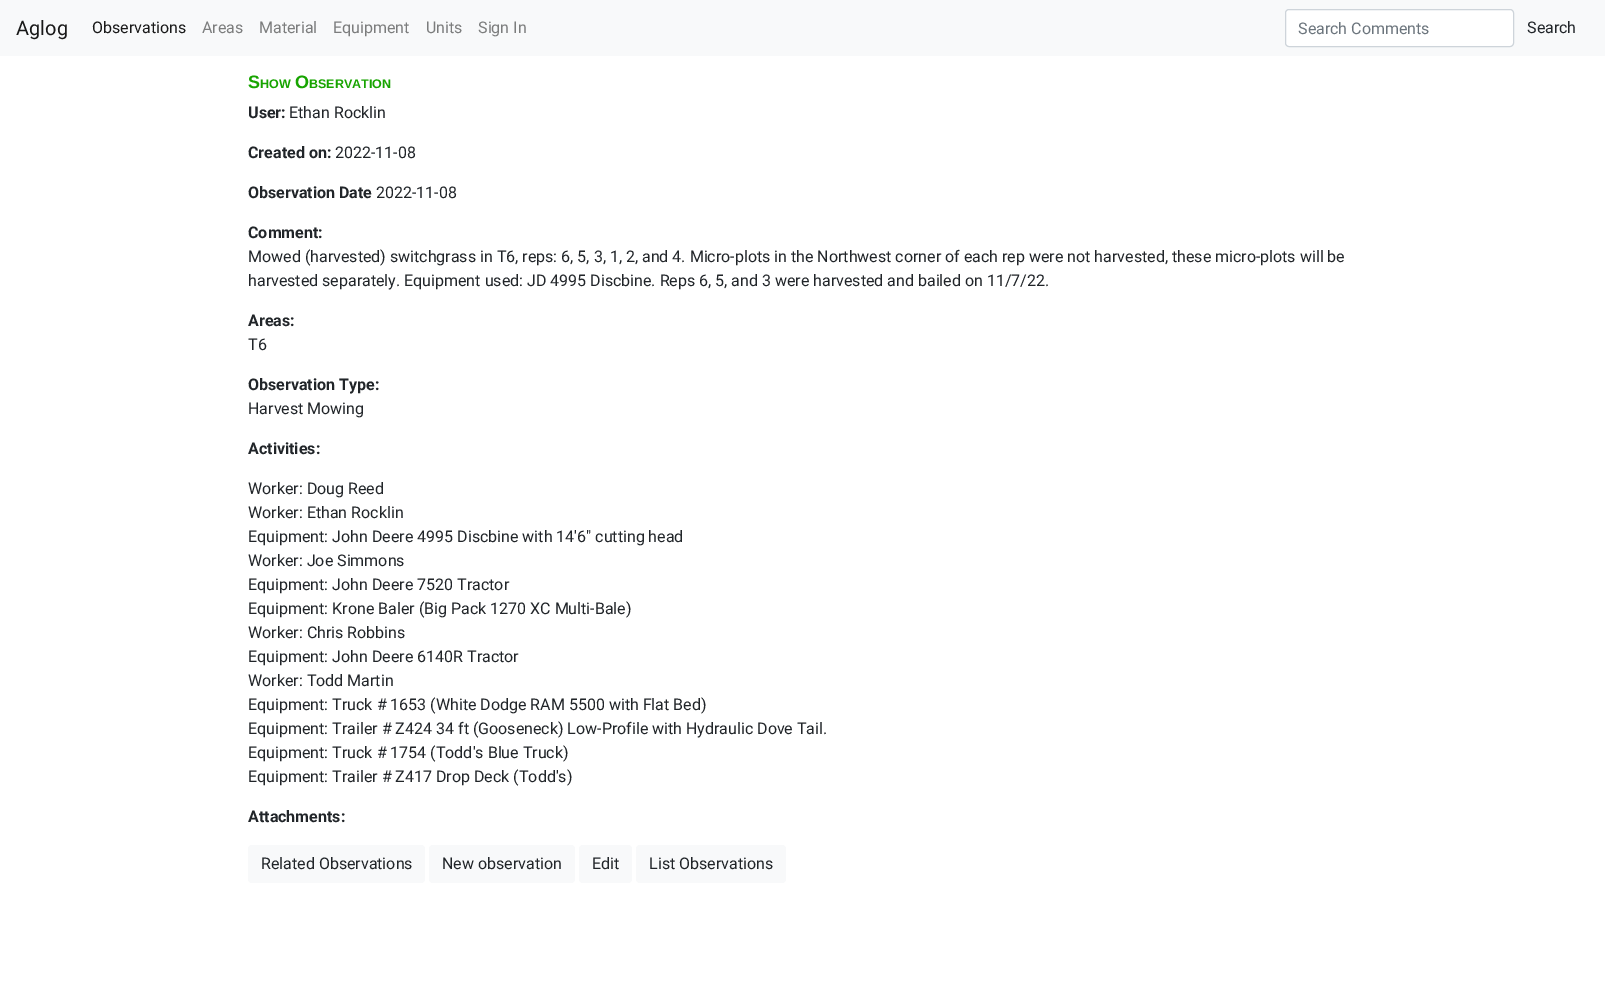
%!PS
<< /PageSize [1605 1006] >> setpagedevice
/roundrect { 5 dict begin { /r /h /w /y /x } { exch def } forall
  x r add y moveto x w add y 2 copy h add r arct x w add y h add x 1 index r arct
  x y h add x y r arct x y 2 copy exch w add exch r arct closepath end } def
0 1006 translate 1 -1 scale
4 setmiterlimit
1 setgray
0 0 1605 1006 rectfill
0.973 0.976 0.98 setrgbcolor
0 0 1605 56 rectfill
/Roboto-Regular [20 0 0 -20 0 0] selectfont
0.098 setgray
16 35 moveto (Aglog) show
/Roboto-Regular [16 0 0 -16 0 0] selectfont
92 33 moveto (Observations) show
0.486 0.49 0.49 setrgbcolor
202 33 moveto (Areas) show
259 33 moveto (Material) show
333 33 moveto (Equipment) show
426 33 moveto (Units) show
478 33 moveto (Sign In) show
1 setgray
1285.5 9.5 228 37 3.5 roundrect gsave fill grestore
0.808 0.831 0.855 setrgbcolor
stroke
0.424 0.459 0.49 setrgbcolor
1298 34 moveto (Search Comments) show
0.129 0.145 0.161 setrgbcolor
1527 33 moveto (Search) show
/LiberationSans-Bold [18 0 0 -18 0 0] selectfont
0.09 0.643 0 setrgbcolor
248 88 moveto (S) show
/LiberationSans-Bold [12.5 0 0 -12.5 0 0] selectfont
260 88 moveto (HOW) show
/LiberationSans-Bold [18 0 0 -18 0 0] selectfont
295 88 moveto (O) show
/LiberationSans-Bold [12.5 0 0 -12.5 0 0] selectfont
309 88 moveto (BSERVATION) show
/Roboto-Bold [16 0 0 -16 0 0] selectfont
0.129 0.145 0.161 setrgbcolor
248 118 moveto (User:) show
/Roboto-Regular [16 0 0 -16 0 0] selectfont
289 118 moveto (Ethan Rocklin) show
/Roboto-Bold [16 0 0 -16 0 0] selectfont
248 158 moveto (Created on:) show
/Roboto-Regular [16 0 0 -16 0 0] selectfont
335 158 moveto (2022-11-08) show
/Roboto-Bold [16 0 0 -16 0 0] selectfont
248 198 moveto (Observation Date) show
/Roboto-Regular [16 0 0 -16 0 0] selectfont
376 198 moveto (2022-11-08) show
/Roboto-Bold [16 0 0 -16 0 0] selectfont
248 238 moveto (Comment:) show
/Roboto-Regular [16 0 0 -16 0 0] selectfont
248 262 moveto (Mowed \(harvested\) switchgrass in T6, reps: 6, 5, 3, 1, 2, and 4. Micro-plots in the Northwest corner of each rep were not harvested, these micro-plots will be) show
248 286 moveto (harvested separately. Equipment used: JD 4995 Discbine. Reps 6, 5, and 3 were harvested and bailed on 11/7/22.) show
/Roboto-Bold [16 0 0 -16 0 0] selectfont
248 326 moveto (Areas:) show
/Roboto-Regular [16 0 0 -16 0 0] selectfont
248 350 moveto (T6) show
/Roboto-Bold [16 0 0 -16 0 0] selectfont
248 390 moveto (Observation Type:) show
/Roboto-Regular [16 0 0 -16 0 0] selectfont
248 414 moveto (Harvest Mowing) show
/Roboto-Bold [16 0 0 -16 0 0] selectfont
248 454 moveto (Activities:) show
/Roboto-Regular [16 0 0 -16 0 0] selectfont
248 494 moveto (Worker: Doug Reed) show
248 518 moveto (Worker: Ethan Rocklin) show
248 542 moveto (Equipment: John Deere 4995 Discbine with 14'6" cutting head) show
248 566 moveto (Worker: Joe Simmons) show
248 590 moveto (Equipment: John Deere 7520 Tractor) show
248 614 moveto (Equipment: Krone Baler \(Big Pack 1270 XC Multi-Bale\)) show
248 638 moveto (Worker: Chris Robbins) show
248 662 moveto (Equipment: John Deere 6140R Tractor) show
248 686 moveto (Worker: Todd Martin) show
248 710 moveto (Equipment: Truck # 1653 \(White Dodge RAM 5500 with Flat Bed\)) show
248 734 moveto (Equipment: Trailer # Z424 34 ft \(Gooseneck\) Low-Profile with Hydraulic Dove Tail.) show
248 758 moveto (Equipment: Truck # 1754 \(Todd's Blue Truck\)) show
248 782 moveto (Equipment: Trailer # Z417 Drop Deck \(Todd's\)) show
/Roboto-Bold [16 0 0 -16 0 0] selectfont
248 822 moveto (Attachments:) show
0.973 0.976 0.98 setrgbcolor
248 845 177 38 4 roundrect fill
/Roboto-Regular [16 0 0 -16 0 0] selectfont
0.129 0.145 0.161 setrgbcolor
261 869 moveto (Related Observations) show
0.973 0.976 0.98 setrgbcolor
429 845 146 38 4 roundrect fill
0.129 0.145 0.161 setrgbcolor
442 869 moveto (New observation) show
0.973 0.976 0.98 setrgbcolor
579 845 53 38 4 roundrect fill
0.129 0.145 0.161 setrgbcolor
592 869 moveto (Edit) show
0.973 0.976 0.98 setrgbcolor
636 845 150 38 4 roundrect fill
0.129 0.145 0.161 setrgbcolor
649 869 moveto (List Observations) show
showpage
